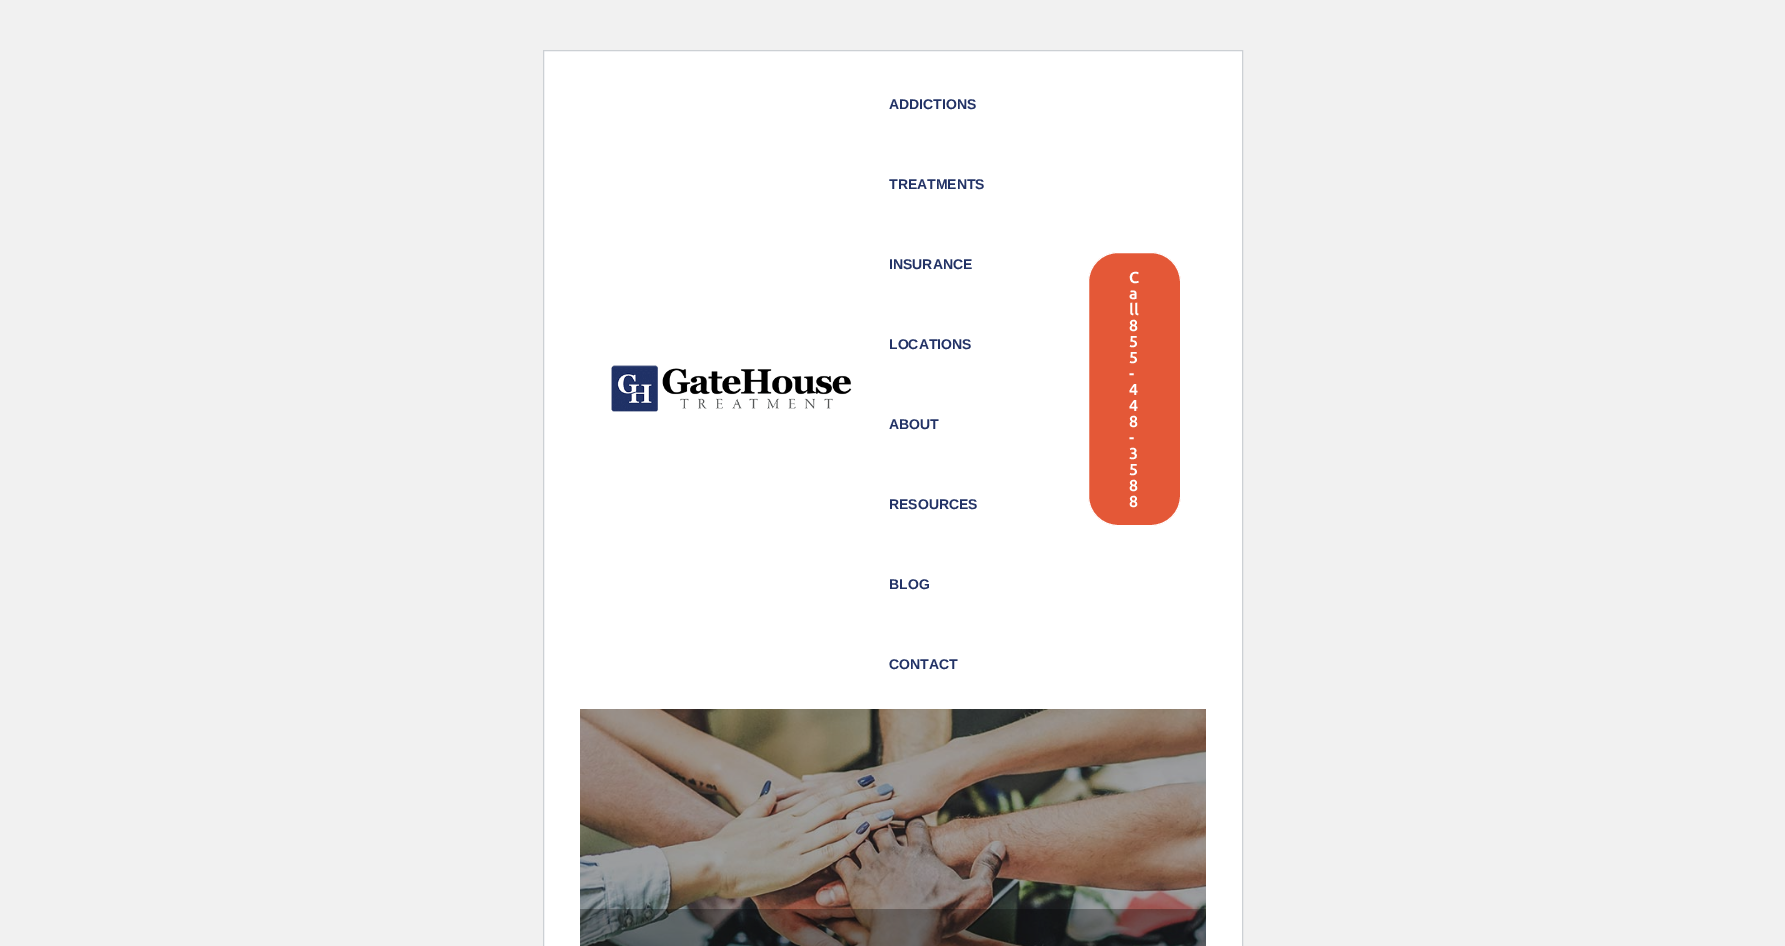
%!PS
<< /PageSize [1785 946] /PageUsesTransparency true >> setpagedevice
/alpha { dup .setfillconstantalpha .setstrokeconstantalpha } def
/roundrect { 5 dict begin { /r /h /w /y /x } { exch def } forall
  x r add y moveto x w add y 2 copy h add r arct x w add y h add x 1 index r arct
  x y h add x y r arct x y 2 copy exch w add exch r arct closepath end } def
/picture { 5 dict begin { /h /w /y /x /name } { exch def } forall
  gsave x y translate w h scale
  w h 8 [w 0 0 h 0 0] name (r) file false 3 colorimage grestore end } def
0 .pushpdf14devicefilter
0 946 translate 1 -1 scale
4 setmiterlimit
0.945 setgray
0 0 1785 946 rectfill
1 setgray
newpath 543.5 50.5 moveto 1242.5 50.5 lineto 1242.5 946.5 lineto 543.5 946.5 lineto closepath gsave fill grestore
0.8 0.816 0.831 setrgbcolor
stroke
(img1.rgb) 611 365 241 47 picture
/LiberationSans-Bold [14 0 0 -14 0 0] selectfont
0.133 0.196 0.4 setrgbcolor
889 109 moveto (ADDICTIONS) show
889 189 moveto (TREATMENTS) show
889 269 moveto (INSURANCE) show
889 349 moveto (LOCATIONS) show
889 429 moveto (ABOUT) show
889 509 moveto (RESOURCES) show
889 589 moveto (BLOG) show
889 669 moveto (CONTACT) show
0.894 0.345 0.216 setrgbcolor
1088.5 252.5 92 273 29.5 roundrect gsave fill grestore
1 setgray
stroke
/Ubuntu-Bold [16 0 0 -16 0 0] selectfont
1129 283 moveto (C) show
1129 299 moveto (a) show
1129 315 moveto (ll) show
1129 331 moveto (8) show
1129 347 moveto (5) show
1129 363 moveto (5) show
1129 379 moveto (-) show
1129 395 moveto (4) show
1129 411 moveto (4) show
1129 427 moveto (8) show
1129 443 moveto (-) show
1129 459 moveto (3) show
1129 475 moveto (5) show
1129 491 moveto (8) show
1129 507 moveto (8) show
(img2.rgb) 580 709 626 237 picture
0.3 alpha
0 setgray
580 909 626 37 rectfill
.poppdf14devicefilter showpage
